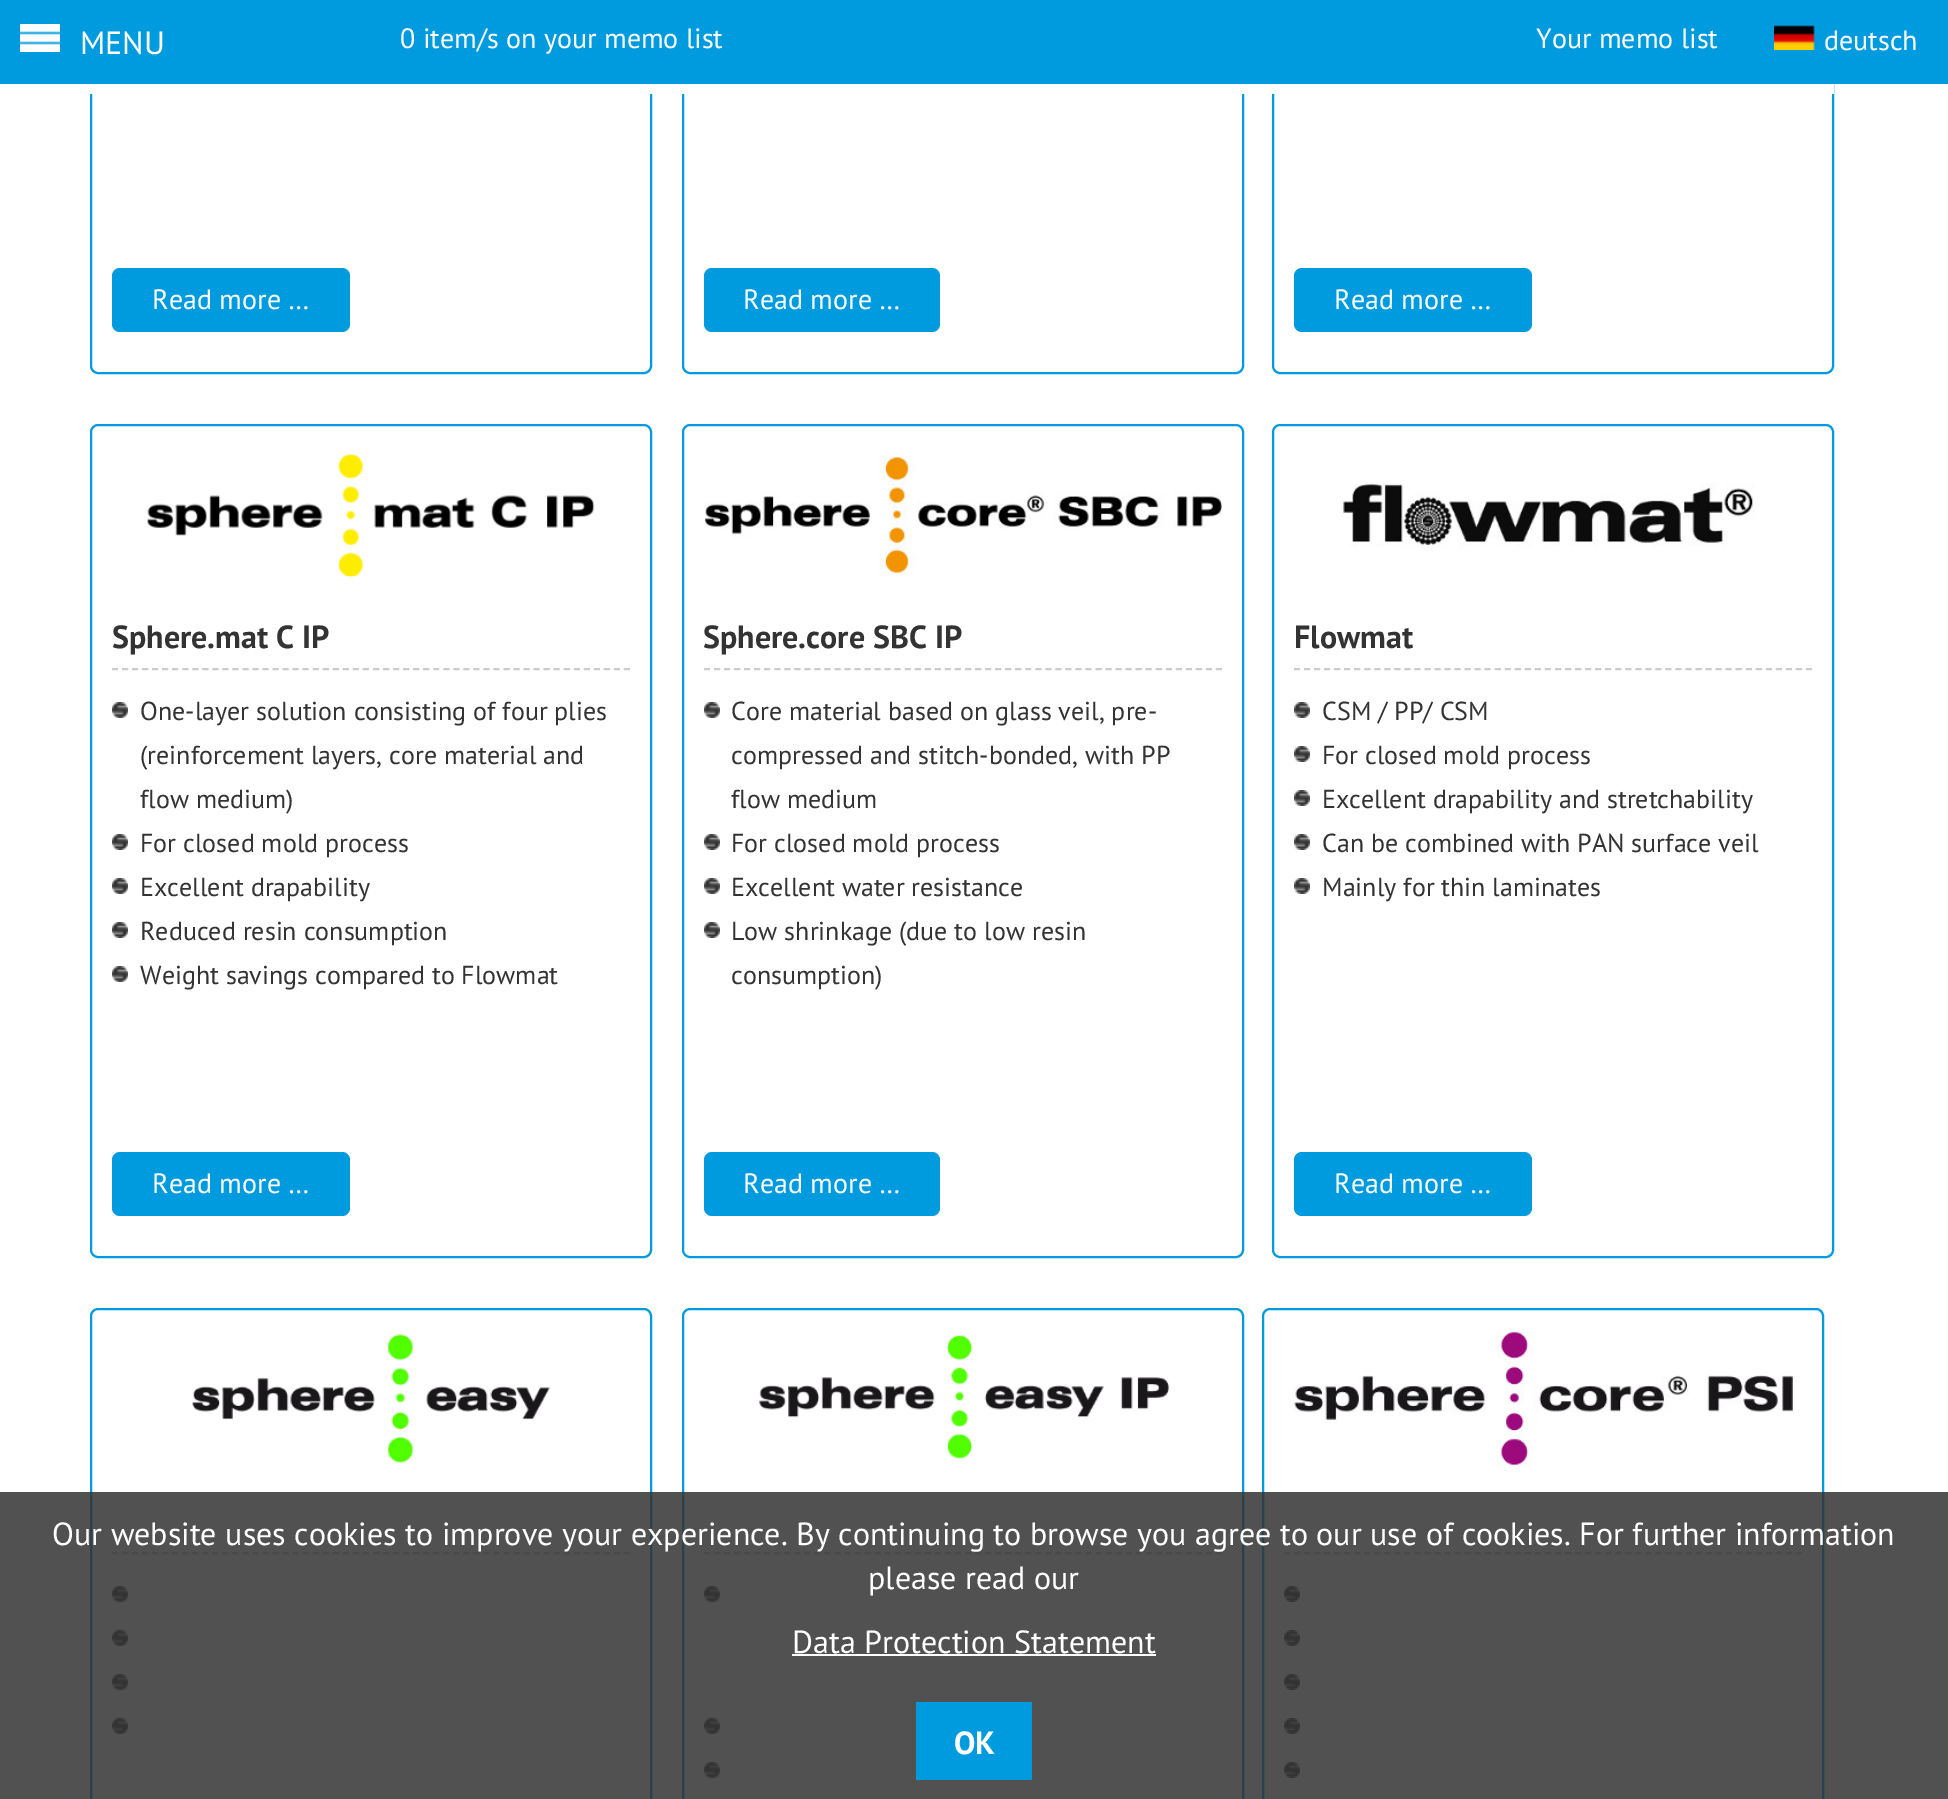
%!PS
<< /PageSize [1948 1799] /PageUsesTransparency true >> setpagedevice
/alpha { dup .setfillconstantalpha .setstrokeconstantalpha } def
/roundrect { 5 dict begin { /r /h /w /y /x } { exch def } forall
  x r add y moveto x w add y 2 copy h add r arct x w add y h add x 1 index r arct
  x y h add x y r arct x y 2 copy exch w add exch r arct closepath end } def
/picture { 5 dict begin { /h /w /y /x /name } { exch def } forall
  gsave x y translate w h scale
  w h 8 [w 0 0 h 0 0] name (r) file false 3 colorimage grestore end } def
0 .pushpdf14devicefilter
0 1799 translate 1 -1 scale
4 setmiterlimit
1 setgray
0 0 1948 1799 rectfill
0 0.608 0.875 setrgbcolor
2 setlinewidth
91 -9 560 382 7 roundrect stroke
683 -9 560 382 7 roundrect stroke
1273 -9 560 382 7 roundrect stroke
0 0 1948 84 rectfill
/PTSans-Regular [28 0 0 -28 0 0] selectfont
1 setgray
400 48 moveto (0 item/s on your memo list) show
1536 48 moveto (Your memo list) show
(img1.rgb) 1774 25 41 25 picture
1824 50 moveto (deutsch) show
90 84 1744 10 rectfill
(img2.rgb) 20 24 40 28 picture
/PTSans-Regular [32 0 0 -32 0 0] selectfont
80 54 moveto (MENU) show
0 0.608 0.875 setrgbcolor
112 268 238 64 8 roundrect fill
/PTSans-Regular [28 0 0 -28 0 0] selectfont
1 setgray
152 309 moveto (Read more …) show
0 0.608 0.875 setrgbcolor
704 268 236 64 8 roundrect fill
1 setgray
743 309 moveto (Read more …) show
0 0.608 0.875 setrgbcolor
1294 268 238 64 8 roundrect fill
1 setgray
1334 309 moveto (Read more …) show
0 0.608 0.875 setrgbcolor
91 425 560 832 7 roundrect stroke
(img3.rgb) 147 454 448 124 picture
0.8 setgray
[6 4.04] 0 setdash
newpath 112 669 moveto 630 669 lineto stroke
/PTSans-Bold [32 0 0 -32 0 0] selectfont
0.2 setgray
112 648 moveto (Sphere.mat C IP) show
(img4.rgb) 112 702 16 16 picture
/PTSans-Regular [26 0 0 -26 0 0] selectfont
140 720 moveto (One-layer solution consisting of four plies) show
140 764 moveto (\(reinforcement layers, core material and) show
140 808 moveto (flow medium\)) show
(img4.rgb) 112 834 16 16 picture
140 852 moveto (For closed mold process) show
(img4.rgb) 112 878 16 16 picture
140 896 moveto (Excellent drapability) show
(img4.rgb) 112 922 16 16 picture
140 940 moveto (Reduced resin consumption) show
(img4.rgb) 112 966 16 16 picture
140 984 moveto (Weight savings compared to Flowmat) show
0 0.608 0.875 setrgbcolor
112 1152 238 64 8 roundrect fill
/PTSans-Regular [28 0 0 -28 0 0] selectfont
1 setgray
152 1193 moveto (Read more …) show
0 0.608 0.875 setrgbcolor
[] 0 setdash
683 425 560 832 7 roundrect stroke
(img5.rgb) 704 455 518 120 picture
0.8 setgray
[6 4.04] 0 setdash
newpath 704 669 moveto 1222 669 lineto stroke
/PTSans-Bold [32 0 0 -32 0 0] selectfont
0.2 setgray
703 648 moveto (Sphere.core SBC IP) show
(img4.rgb) 704 702 16 16 picture
/PTSans-Regular [26 0 0 -26 0 0] selectfont
731 720 moveto (Core material based on glass veil, pre-) show
731 764 moveto (compressed and stitch-bonded, with PP) show
731 808 moveto (flow medium) show
(img4.rgb) 704 834 16 16 picture
731 852 moveto (For closed mold process) show
(img4.rgb) 704 878 16 16 picture
731 896 moveto (Excellent water resistance) show
(img4.rgb) 704 922 16 16 picture
731 940 moveto (Low shrinkage \(due to low resin) show
731 984 moveto (consumption\)) show
0 0.608 0.875 setrgbcolor
704 1152 236 64 8 roundrect fill
/PTSans-Regular [28 0 0 -28 0 0] selectfont
1 setgray
743 1193 moveto (Read more …) show
0 0.608 0.875 setrgbcolor
[] 0 setdash
1273 425 560 832 7 roundrect stroke
(img6.rgb) 1340 483 415 64 picture
0.8 setgray
[6 4.04] 0 setdash
newpath 1294 669 moveto 1812 669 lineto stroke
/PTSans-Bold [32 0 0 -32 0 0] selectfont
0.2 setgray
1294 648 moveto (Flowmat) show
(img4.rgb) 1294 702 16 16 picture
/PTSans-Regular [26 0 0 -26 0 0] selectfont
1322 720 moveto (CSM / PP/ CSM) show
(img4.rgb) 1294 746 16 16 picture
1322 764 moveto (For closed mold process) show
(img4.rgb) 1294 790 16 16 picture
1322 808 moveto (Excellent drapability and stretchability) show
(img4.rgb) 1294 834 16 16 picture
1322 852 moveto (Can be combined with PAN surface veil) show
(img4.rgb) 1294 878 16 16 picture
1322 896 moveto (Mainly for thin laminates) show
0 0.608 0.875 setrgbcolor
1294 1152 238 64 8 roundrect fill
/PTSans-Regular [28 0 0 -28 0 0] selectfont
1 setgray
1334 1193 moveto (Read more …) show
0 0.608 0.875 setrgbcolor
[] 0 setdash
91 1309 560 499 7 roundrect stroke
(img7.rgb) 192 1334 358 130 picture
0.8 setgray
[6 4.04] 0 setdash
newpath 112 1553 moveto 630 1553 lineto stroke
(img4.rgb) 112 1586 16 16 picture
(img4.rgb) 112 1630 16 16 picture
(img4.rgb) 112 1674 16 16 picture
(img4.rgb) 112 1718 16 16 picture
0 0.608 0.875 setrgbcolor
[] 0 setdash
683 1309 560 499 7 roundrect stroke
(img8.rgb) 759 1335 411 124 picture
0.8 setgray
[6 4.04] 0 setdash
newpath 704 1553 moveto 1222 1553 lineto stroke
(img4.rgb) 704 1586 16 16 picture
(img4.rgb) 704 1718 16 16 picture
(img4.rgb) 704 1762 16 16 picture
0 0.608 0.875 setrgbcolor
[] 0 setdash
1263 1309 560 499 7 roundrect stroke
(img9.rgb) 1293 1330 502 138 picture
0.8 setgray
[6 4.04] 0 setdash
newpath 1284 1553 moveto 1802 1553 lineto stroke
(img4.rgb) 1284 1586 16 16 picture
(img4.rgb) 1284 1630 16 16 picture
(img4.rgb) 1284 1674 16 16 picture
(img4.rgb) 1284 1718 16 16 picture
(img4.rgb) 1284 1762 16 16 picture
0.85 alpha
0.196 setgray
0 1492 1948 307 rectfill
/PTSans-Regular [32 0 0 -32 0 0] selectfont
1 alpha
1 setgray
52 1545 moveto (Our website uses cookies to improve your experience. By continuing to browse you agree to our use of cookies. For further information) show
868 1589 moveto (please read our) show
792 1653 moveto (Data Protection Statement) show
792 1654 364 2 rectfill
0 0.608 0.875 setrgbcolor
916 1702 116 78 rectfill
/PTSans-Bold [32 0 0 -32 0 0] selectfont
1 setgray
954 1754 moveto (OK) show
.poppdf14devicefilter showpage
